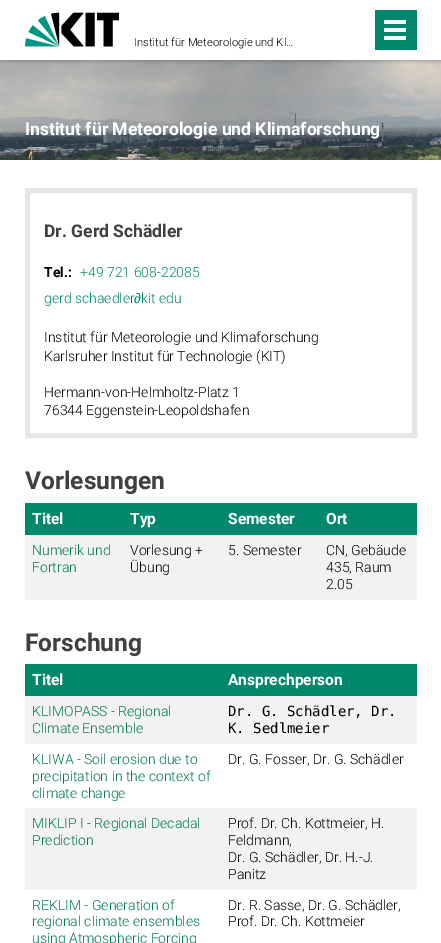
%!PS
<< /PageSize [441 943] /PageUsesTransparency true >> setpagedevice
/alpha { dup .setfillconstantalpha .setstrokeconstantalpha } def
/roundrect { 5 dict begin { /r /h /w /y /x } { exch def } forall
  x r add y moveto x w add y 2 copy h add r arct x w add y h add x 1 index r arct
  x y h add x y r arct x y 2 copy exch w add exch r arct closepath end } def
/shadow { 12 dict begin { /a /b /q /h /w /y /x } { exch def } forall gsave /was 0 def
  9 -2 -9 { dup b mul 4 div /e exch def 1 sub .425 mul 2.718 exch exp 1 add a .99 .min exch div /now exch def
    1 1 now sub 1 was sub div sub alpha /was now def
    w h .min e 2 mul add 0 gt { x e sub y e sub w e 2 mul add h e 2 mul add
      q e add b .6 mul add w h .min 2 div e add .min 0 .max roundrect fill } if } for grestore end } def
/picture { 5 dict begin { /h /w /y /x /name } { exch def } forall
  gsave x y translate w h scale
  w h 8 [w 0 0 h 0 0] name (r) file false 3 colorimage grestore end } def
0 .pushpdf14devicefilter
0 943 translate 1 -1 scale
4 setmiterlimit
1 setgray
0 0 441 943 rectfill
(img2.rgb) 0 60 441 100 picture
gsave
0 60 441 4 rectclip
0.251 setgray
0 0 441 60 0 2.5 0.5 shadow
grestore
(img1.rgb) 25 12 94 35 picture
/Roboto-Light [11.25 0 0 -11.25 0 0] selectfont
0 setgray
134 46 moveto (Institut für Meteorologie und Kl…) show
0 0.529 0.424 setrgbcolor
375 10 42 40 rectfill
1 setgray
384 36 22 4 rectfill
384 28 22 4 rectfill
384 20 22 4 rectfill
/Roboto-Bold [17.5 0 0 -17.5 0 0] selectfont
25 135 moveto (Institut für Meteorologie und Klimaforschung) show
0.902 setgray
5 setlinewidth
27.5 190.5 387 245 rectstroke
0.251 setgray
44 237 moveto (Dr. Gerd Schädler) show
/Roboto-Bold [14 0 0 -14 0 0] selectfont
0 setgray
44 277 moveto (Tel.:) show
/Roboto-Light [14 0 0 -14 0 0] selectfont
0 0.529 0.424 setrgbcolor
80 277 moveto (+49 721 608-22085) show
44 303 moveto (gerd schaedler) show
/LiberationSans-Regular [14 0 0 -14 0 0] selectfont
134 303 moveto (∂) show
/Roboto-Light [14 0 0 -14 0 0] selectfont
141 303 moveto (kit edu) show
0 setgray
44 342 moveto (Institut für Meteorologie und Klimaforschung) show
44 361 moveto (Karlsruher Institut für Technologie \(KIT\)) show
44 397 moveto (Hermann-von-Helmholtz-Platz 1) show
44 415 moveto (76344 Eggenstein-Leopoldshafen) show
/Roboto-Bold [24.5 0 0 -24.5 0 0] selectfont
0.251 setgray
25 489 moveto (Vorlesungen) show
0 0.529 0.424 setrgbcolor
25 503 392 32 rectfill
/Roboto-Bold [15.5 0 0 -15.5 0 0] selectfont
1 setgray
32 524 moveto (Titel) show
130 524 moveto (Typ) show
228 524 moveto (Semester) show
326 524 moveto (Ort) show
0.949 setgray
25 535 392 65 rectfill
/Roboto-Light [14 0 0 -14 0 0] selectfont
0 0.467 0.333 setrgbcolor
32 555 moveto (Numerik und) show
32 572 moveto (Fortran) show
0 setgray
130 555 moveto (Vorlesung +) show
130 572 moveto (Übung) show
228 555 moveto (5. Semester) show
326 555 moveto (CN, Gebäude) show
326 572 moveto (435, Raum) show
326 589 moveto (2.05) show
/Roboto-Bold [24.5 0 0 -24.5 0 0] selectfont
0.251 setgray
25 651 moveto (Forschung) show
0 0.529 0.424 setrgbcolor
25 664 392 32 rectfill
/Roboto-Bold [15.5 0 0 -15.5 0 0] selectfont
1 setgray
32 685 moveto (Titel) show
228 685 moveto (Ansprechperson) show
0.949 setgray
25 696 392 48 rectfill
/Roboto-Light [14 0 0 -14 0 0] selectfont
0 0.467 0.333 setrgbcolor
32 716 moveto (KLIMOPASS - Regional) show
32 733 moveto (Climate Ensemble) show
/DejaVuSansMono-Regular [14 0 0 -14 0 0] selectfont
0 setgray
228 716 moveto (Dr. G. Schädler, Dr.) show
228 733 moveto (K. Sedlmeier) show
/Roboto-Light [14 0 0 -14 0 0] selectfont
0 0.467 0.333 setrgbcolor
32 764 moveto (KLIWA - Soil erosion due to) show
32 781 moveto (precipitation in the context of) show
32 798 moveto (climate change) show
0 setgray
228 764 moveto (Dr. G. Fosser, Dr. G. Schädler) show
0.949 setgray
25 808 392 82 rectfill
0 0.467 0.333 setrgbcolor
32 828 moveto (MIKLIP I - Regional Decadal) show
32 845 moveto (Prediction) show
0 setgray
228 828 moveto (Prof. Dr. Ch. Kottmeier, H.) show
228 845 moveto (Feldmann,) show
228 862 moveto (Dr. G. Schädler, Dr. H.-J.) show
228 879 moveto (Panitz) show
0 0.467 0.333 setrgbcolor
32 910 moveto (REKLIM - Generation of) show
32 926 moveto (regional climate ensembles) show
32 943 moveto (using Atmospheric Forcing) show
0 setgray
228 910 moveto (Dr. R. Sasse, Dr. G. Schädler,) show
228 926 moveto (Prof. Dr. Ch. Kottmeier) show
.poppdf14devicefilter showpage
